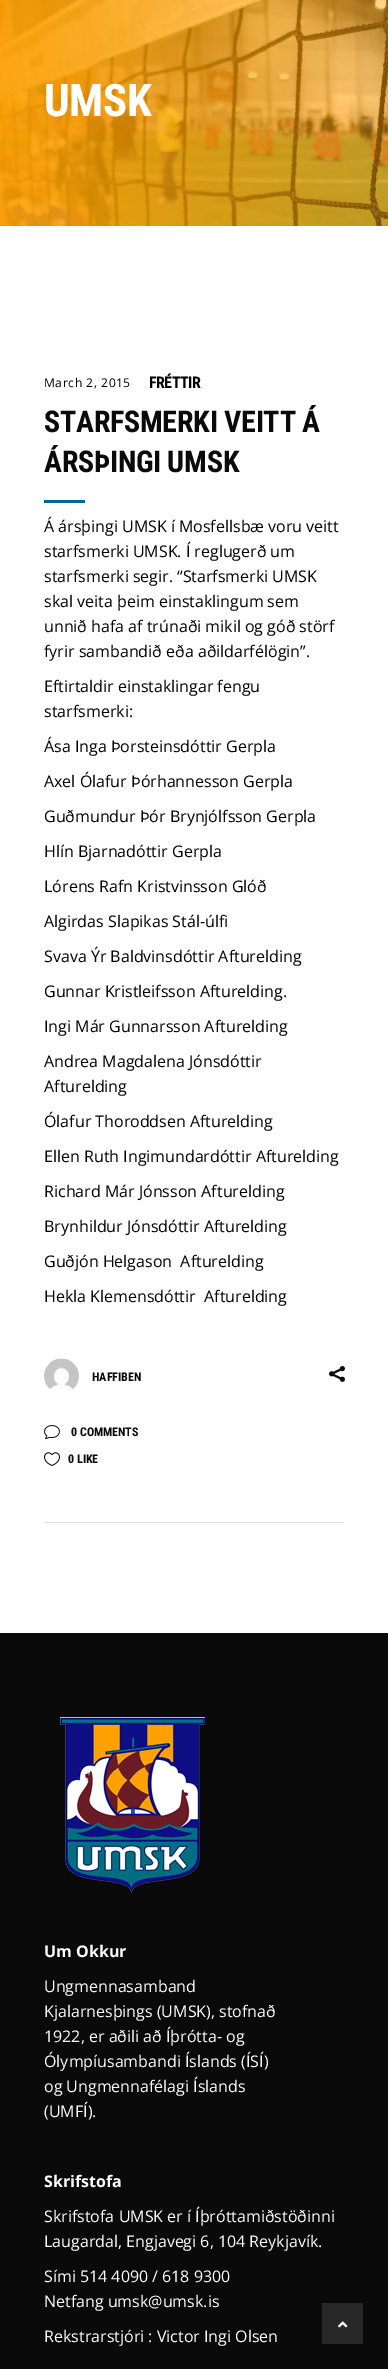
%!PS
<< /PageSize [388 2369] >> setpagedevice
/picture { 5 dict begin { /h /w /y /x /name } { exch def } forall
  gsave x y translate w h scale
  w h 8 [w 0 0 h 0 0] name (r) file false 3 colorimage grestore end } def
0 2369 translate 1 -1 scale
4 setmiterlimit
1 setgray
0 0 388 2369 rectfill
(img1.rgb) 0 0 388 226 picture
/RobotoCondensed-Bold [45 0 0 -45 0 0] selectfont
44 116 moveto -0.5 0 (UMSK) ashow
/OpenSans-Regular [12 0 0 -12 0 0] selectfont
0 setgray
44 387 moveto 0.6 0 (March 2, 2015) ashow
/RobotoCondensed-Bold [16 0 0 -16 0 0] selectfont
149 388 moveto -0.5 0 (FRÉTTIR) ashow
/RobotoCondensed-Bold [30 0 0 -30 0 0] selectfont
0.039 setgray
44 432 moveto -0.25 0 (STARFSMERKI VEITT Á) ashow
44 472 moveto -0.25 0 (ÁRSÞINGI UMSK) ashow
0 0.4 0.6 setrgbcolor
44 500 41 3 rectfill
/OpenSans-Regular [16 0 0 -16 0 0] selectfont
0 setgray
44 532 moveto (Á ársþingi UMSK í Mosfellsbæ voru veitt) show
44 557 moveto (starfsmerki UMSK. Í reglugerð um) show
44 582 moveto (starfsmerki segir. “Starfsmerki UMSK) show
44 607 moveto (skal veita þeim einstaklingum sem) show
44 632 moveto (unnið hafa af trúnaði mikil og góð störf) show
44 657 moveto (fyrir sambandið eða aðildarfélögin”.) show
44 692 moveto (Eftirtaldir einstaklingar fengu) show
44 717 moveto (starfsmerki:) show
44 752 moveto (Ása Inga Þorsteinsdóttir Gerpla) show
44 787 moveto (Axel Ólafur Þórhannesson Gerpla) show
44 822 moveto (Guðmundur Þór Brynjólfsson Gerpla) show
44 857 moveto (Hlín Bjarnadóttir Gerpla) show
44 892 moveto (Lórens Rafn Kristvinsson Glóð) show
44 927 moveto (Algirdas Slapikas Stál-úlfi) show
44 962 moveto (Svava Ýr Baldvinsdóttir Afturelding) show
44 997 moveto (Gunnar Kristleifsson Afturelding.) show
44 1032 moveto (Ingi Már Gunnarsson Afturelding) show
44 1067 moveto (Andrea Magdalena Jónsdóttir) show
44 1092 moveto (Afturelding) show
44 1127 moveto (Ólafur Thoroddsen Afturelding) show
44 1162 moveto (Ellen Ruth Ingimundardóttir Afturelding) show
44 1197 moveto (Richard Már Jónsson Afturelding) show
44 1232 moveto (Brynhildur Jónsdóttir Afturelding) show
44 1267 moveto (Guðjón Helgason  Afturelding) show
44 1302 moveto (Hekla Klemensdóttir  Afturelding) show
0.882 setgray
44 1522 300 1 rectfill
(img2.rgb) 44 1358 35 32 picture
/RobotoCondensed-Bold [12 0 0 -12 0 0] selectfont
0.039 setgray
92 1381 moveto (HAFFIBEN) show
(img3.rgb) 44 1425 16 14 picture
71 1436 moveto (0 COMMENTS) show
(img4.rgb) 44 1452 16 14 picture
68 1463 moveto (0 LIKE) show
(img5.rgb) 329 1366 16 16 picture
0 1633 388 736 rectfill
(img6.rgb) 60 1717 145 177 picture
/OpenSans-Bold [16 0 0 -16 0 0] selectfont
1 setgray
44 1957 moveto (Um Okkur) show
/OpenSans-Regular [16 0 0 -16 0 0] selectfont
44 1992 moveto (Ungmennasamband) show
44 2017 moveto (Kjalarnesþings \(UMSK\), stofnað) show
44 2042 moveto (1922, er aðili að Íþrótta- og) show
44 2067 moveto (Ólympíusambandi Íslands \(ÍSÍ\)) show
44 2092 moveto (og Ungmennafélagi Íslands) show
44 2117 moveto (\(UMFÍ\).) show
/OpenSans-Bold [16 0 0 -16 0 0] selectfont
44 2187 moveto (Skrifstofa) show
/OpenSans-Regular [16 0 0 -16 0 0] selectfont
44 2222 moveto (Skrifstofa UMSK er í Íþróttamiðstöðinni) show
44 2247 moveto (Laugardal, Engjavegi 6, 104 Reykjavík.) show
44 2282 moveto (Sími 514 4090 / 618 9300) show
44 2307 moveto (Netfang umsk@umsk.is) show
44 2342 moveto (Rekstrarstjóri : Victor Ingi Olsen) show
0.157 setgray
322 2303 41 41 rectfill
(img7.rgb) 338 2321 10 7 picture
showpage
